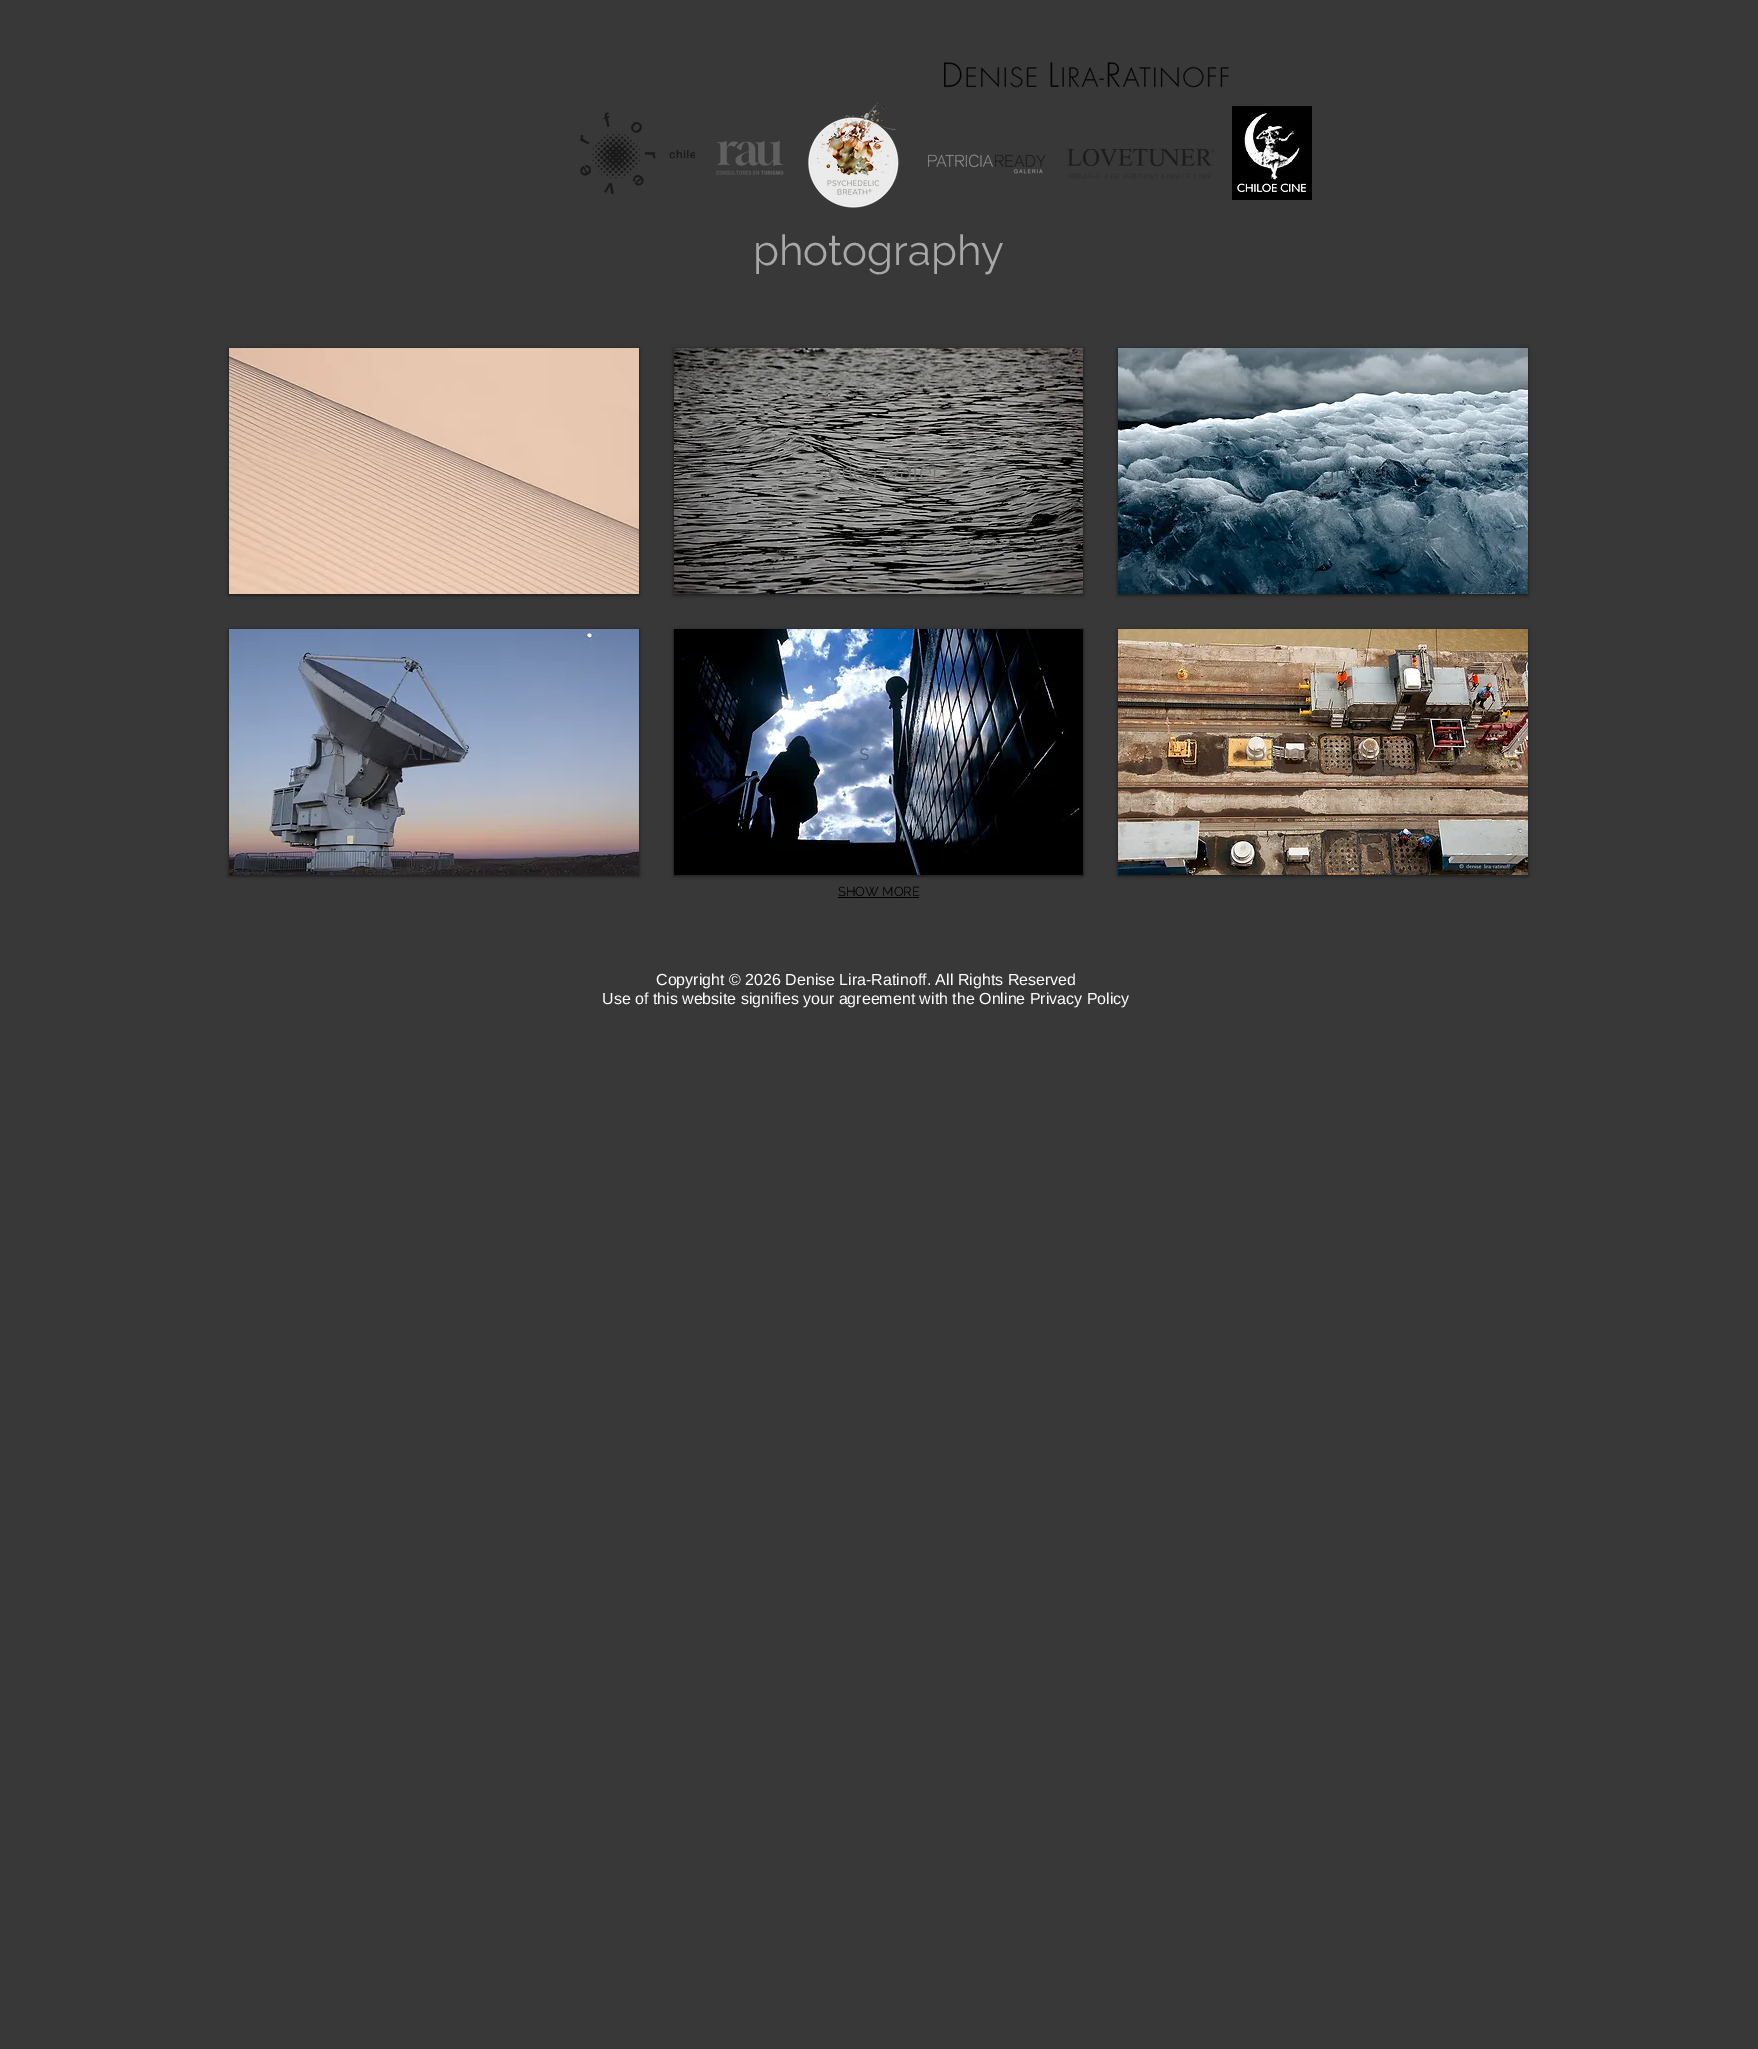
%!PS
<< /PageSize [1758 2049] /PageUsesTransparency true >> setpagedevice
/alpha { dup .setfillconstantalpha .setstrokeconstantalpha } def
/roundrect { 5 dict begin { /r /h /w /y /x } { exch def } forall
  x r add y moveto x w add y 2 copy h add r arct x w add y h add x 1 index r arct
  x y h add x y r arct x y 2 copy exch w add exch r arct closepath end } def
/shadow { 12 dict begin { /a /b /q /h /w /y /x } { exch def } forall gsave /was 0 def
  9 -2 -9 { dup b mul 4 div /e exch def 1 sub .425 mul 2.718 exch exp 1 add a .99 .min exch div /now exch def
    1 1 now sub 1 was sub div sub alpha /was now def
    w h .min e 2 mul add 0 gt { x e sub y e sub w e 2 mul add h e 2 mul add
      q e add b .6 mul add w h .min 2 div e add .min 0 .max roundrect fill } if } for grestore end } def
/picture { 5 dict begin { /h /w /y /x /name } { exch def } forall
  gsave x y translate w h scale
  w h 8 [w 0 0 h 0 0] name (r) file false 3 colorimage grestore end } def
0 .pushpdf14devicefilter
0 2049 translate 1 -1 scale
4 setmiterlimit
0.22 setgray
0 0 1758 2049 rectfill
(img1.rgb) 944 62 285 26 picture
(img2.rgb) 580 112 115 82 picture
(img3.rgb) 716 140 68 35 picture
(img4.rgb) 808 102 91 106 picture
(img5.rgb) 928 154 118 20 picture
(img6.rgb) 1067 149 147 30 picture
(img7.rgb) 1232 106 80 94 picture
/Raleway-Regular [42 0 0 -42 0 0] selectfont
0.659 setgray
753 265 moveto (photography) show
0 setgray
229 349 410 246 0 2 0.6 shadow
(img8.rgb) 229 348 410 246 picture
674 349 409 246 0 2 0.6 shadow
(img9.rgb) 674 348 409 246 picture
/Raleway-Regular [22 0 0 -22 0 0] selectfont
0.447 0.451 0.439 setrgbcolor
817 479 moveto (series water) show
0 setgray
1118 349 410 246 0 2 0.6 shadow
(img10.rgb) 1118 348 410 246 picture
0.227 0.333 0.396 setrgbcolor
1256 479 moveto (series glacier) show
0 setgray
229 630 410 246 0 2 0.6 shadow
(img11.rgb) 229 629 410 246 picture
0.22 0.227 0.263 setrgbcolor
403 760 moveto (ALM) show
0 setgray
674 630 409 246 0 2 0.6 shadow
(img12.rgb) 674 629 409 246 picture
0.302 0.384 0.498 setrgbcolor
859 760 moveto (s) show
0 setgray
1118 630 410 246 0 2 0.6 shadow
(img13.rgb) 1118 629 410 246 picture
0.522 0.455 0.384 setrgbcolor
1252 760 moveto (panama canal) show
/Raleway-Regular [13 0 0 -13 0 0] selectfont
0 setgray
838 896 moveto (SHOW MORE) show
838 897 81 1 rectfill
/LiberationSans-Regular [16 0 0 -16 0 0] selectfont
1 setgray
656 985 moveto (Copyright © 2026 Denise Lira-Ratinoff. All Rights Reserved) show
602 1004 moveto (Use of this website signifies your agreement with the Online Privacy Policy) show
.poppdf14devicefilter showpage
